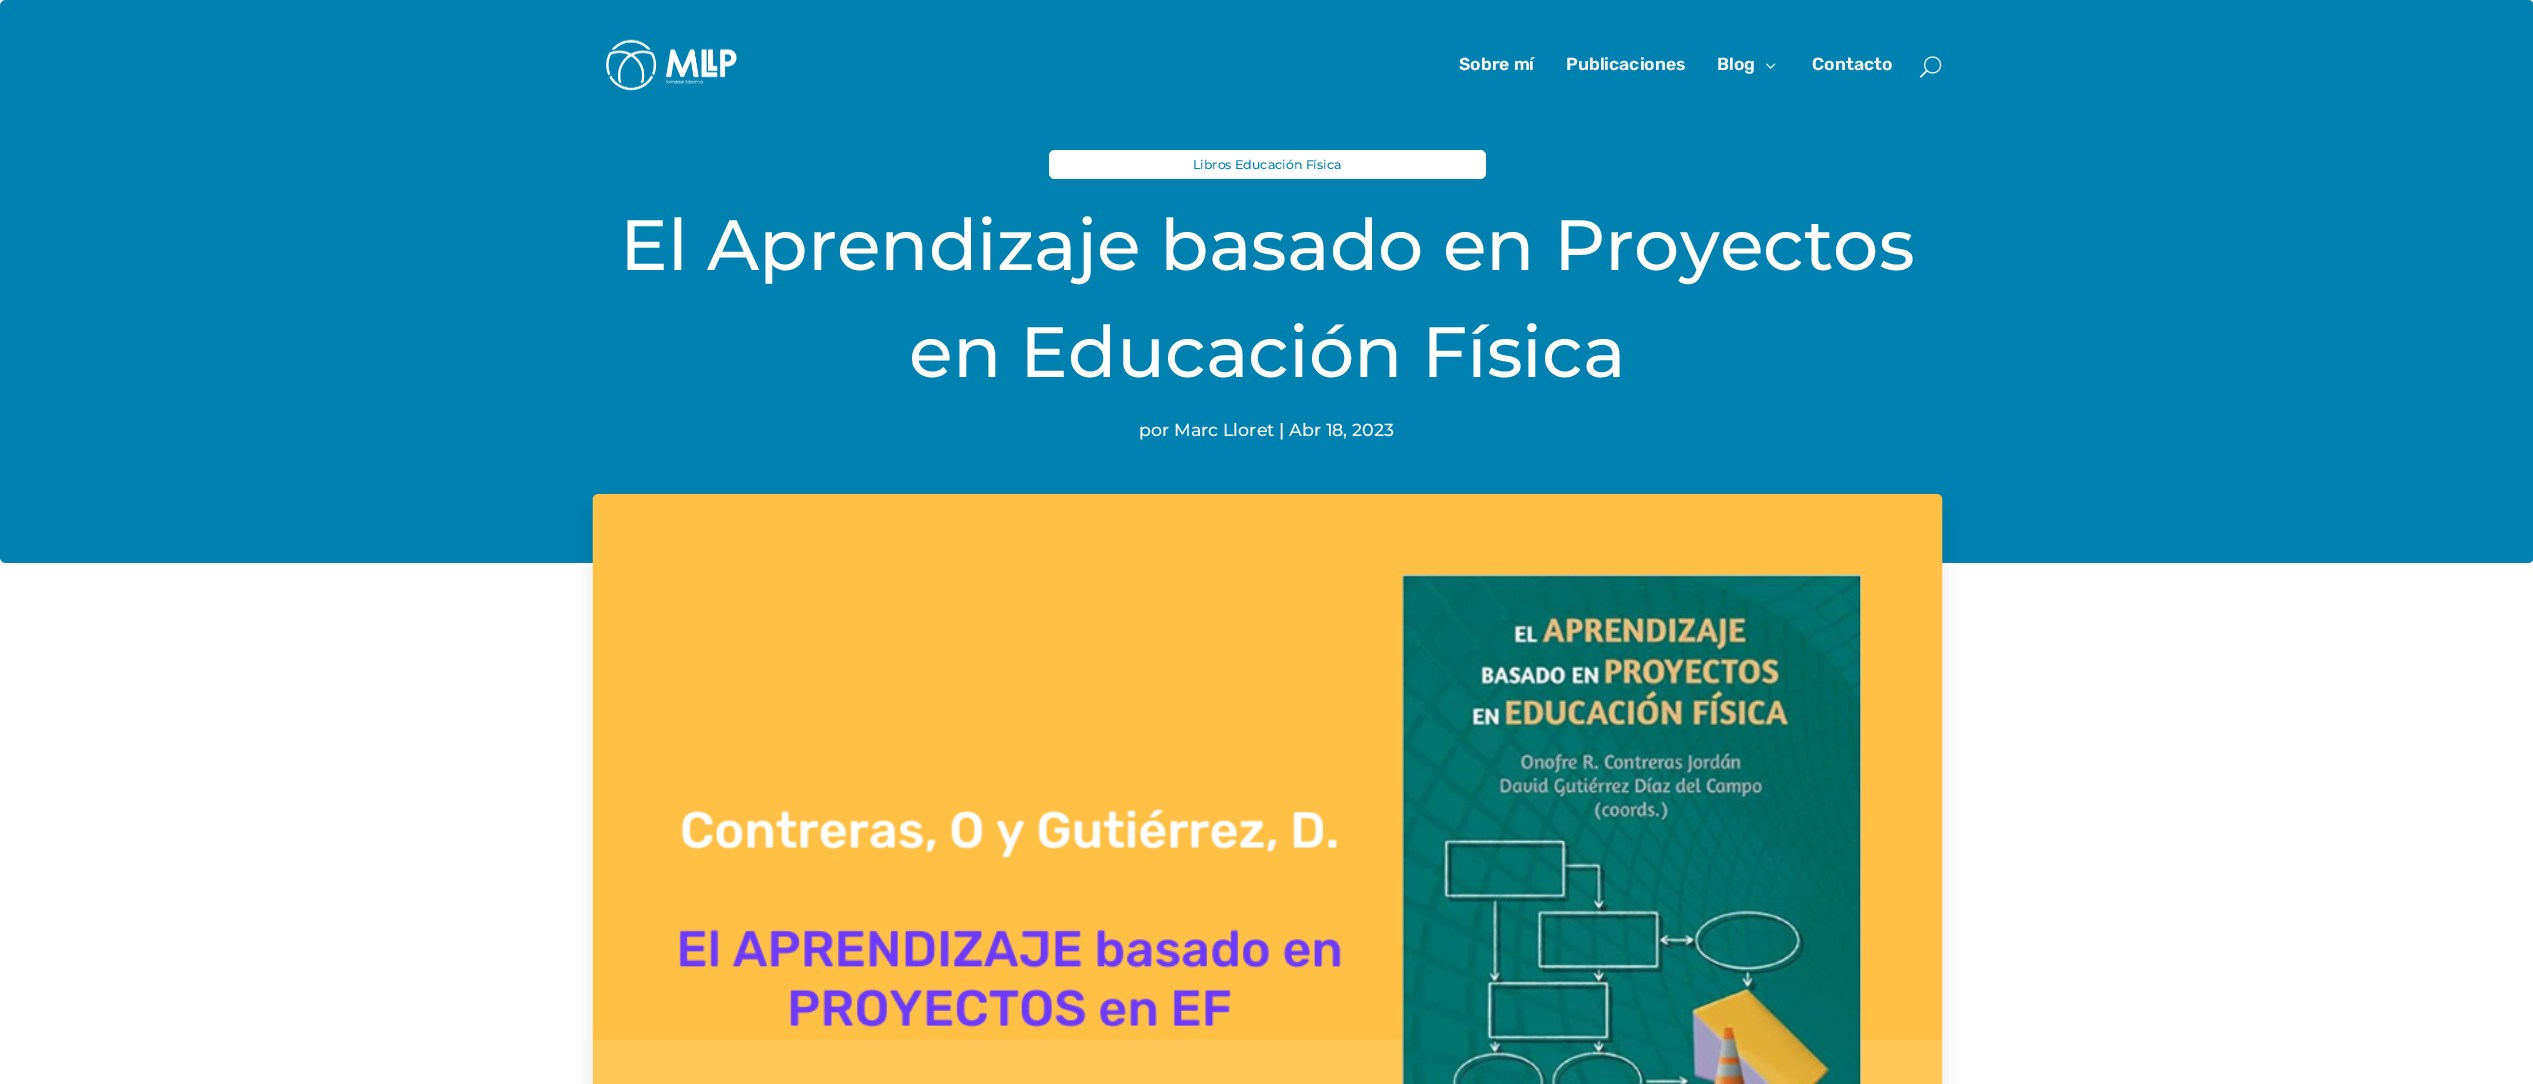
%!PS
<< /PageSize [2533 1084] /PageUsesTransparency true >> setpagedevice
/alpha { dup .setfillconstantalpha .setstrokeconstantalpha } def
/roundrect { 5 dict begin { /r /h /w /y /x } { exch def } forall
  x r add y moveto x w add y 2 copy h add r arct x w add y h add x 1 index r arct
  x y h add x y r arct x y 2 copy exch w add exch r arct closepath end } def
/shadow { 12 dict begin { /a /b /q /h /w /y /x } { exch def } forall gsave /was 0 def
  9 -2 -9 { dup b mul 4 div /e exch def 1 sub .425 mul 2.718 exch exp 1 add a .99 .min exch div /now exch def
    1 1 now sub 1 was sub div sub alpha /was now def
    w h .min e 2 mul add 0 gt { x e sub y e sub w e 2 mul add h e 2 mul add
      q e add b .6 mul add w h .min 2 div e add .min 0 .max roundrect fill } if } for grestore end } def
/picture { 5 dict begin { /h /w /y /x /name } { exch def } forall
  gsave x y translate w h scale
  w h 8 [w 0 0 h 0 0] name (r) file false 3 colorimage grestore end } def
0 .pushpdf14devicefilter
0 1084 translate 1 -1 scale
4 setmiterlimit
1 setgray
0 0 2533 1084 rectfill
0 0.506 0.686 setrgbcolor
0 0 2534 563 6 roundrect fill
(img1.rgb) 606 39 131 52 picture
/Rubik-SemiBold [17.5 0 0 -17.5 0 0] selectfont
0.949 setgray
1459 70 moveto (Sobre mí) show
1566 70 moveto (Publicaciones) show
1717 70 moveto (Blog) show
(img2.rgb) 1766 63 10 6 picture
1812 70 moveto (Contacto) show
(img3.rgb) 1920 56 22 22 picture
1 setgray
1049 150 437 29 6 roundrect fill
/Montserrat-Thin [12.5 0 0 -12.5 0 0] selectfont
0 0.506 0.686 setrgbcolor
1193 169 moveto (Libros Educación Física) show
/Montserrat-Thin [71.25 0 0 -71.25 0 0] selectfont
1 setgray
620 270 moveto (El Aprendizaje basado en Proyectos) show
909 377 moveto (en Educación Física) show
/Montserrat-Thin [17.5 0 0 -17.5 0 0] selectfont
1139 436 moveto (por Marc Lloret | Abr 18, 2023) show
0 setgray
600 516 1335 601 0 11 0.2 shadow
(img4.rgb) 592 493 1351 591 picture
.poppdf14devicefilter showpage
